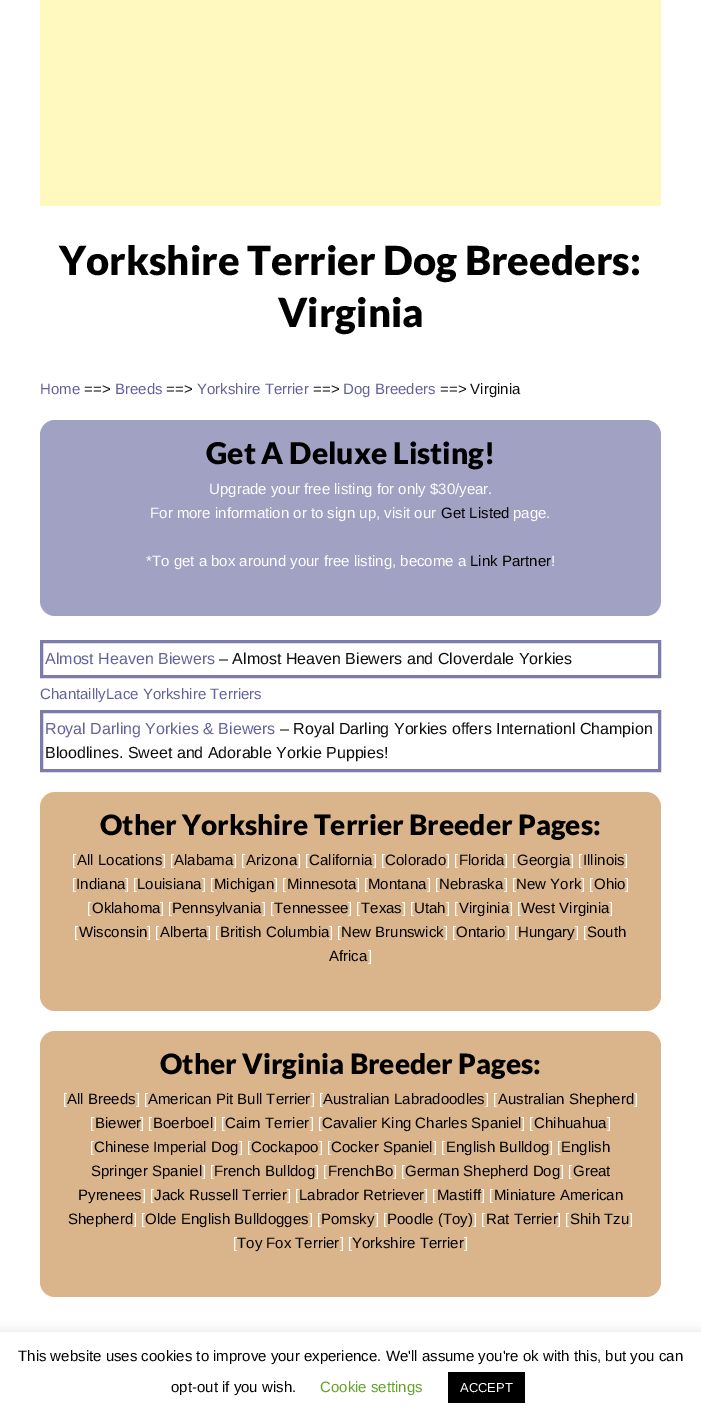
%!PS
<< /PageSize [701 1420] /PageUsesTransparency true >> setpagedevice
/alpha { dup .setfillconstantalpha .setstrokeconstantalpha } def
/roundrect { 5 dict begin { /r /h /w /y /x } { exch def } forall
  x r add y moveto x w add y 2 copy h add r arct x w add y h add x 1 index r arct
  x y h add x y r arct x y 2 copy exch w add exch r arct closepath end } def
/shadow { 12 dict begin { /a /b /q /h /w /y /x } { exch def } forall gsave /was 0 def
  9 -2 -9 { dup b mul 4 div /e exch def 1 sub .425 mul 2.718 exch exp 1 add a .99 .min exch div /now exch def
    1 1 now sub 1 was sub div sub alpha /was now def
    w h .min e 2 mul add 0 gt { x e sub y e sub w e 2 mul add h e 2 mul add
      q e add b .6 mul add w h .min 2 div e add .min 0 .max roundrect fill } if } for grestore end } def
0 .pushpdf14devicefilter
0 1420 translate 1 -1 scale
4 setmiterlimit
1 setgray
0 0 701 1420 rectfill
1 0.976 0.753 setrgbcolor
40 0 621 206 rectfill
/Lato-Black [40 0 0 -40 0 0] selectfont
0 setgray
59 275 moveto (Yorkshire Terrier Dog Breeders:) show
278 327 moveto (Virginia) show
/LiberationSans-Regular [15 0 0 -15 0 0] selectfont
0.384 0.384 0.616 setrgbcolor
40 394 moveto (Home) show
0.051 setgray
84 394 moveto (==>) show
0.384 0.384 0.616 setrgbcolor
115 394 moveto (Breeds) show
0.051 setgray
166 394 moveto (==>) show
0.384 0.384 0.616 setrgbcolor
197 394 moveto (Yorkshire Terrier) show
0.051 setgray
313 394 moveto (==>) show
0.384 0.384 0.616 setrgbcolor
343 394 moveto (Dog Breeders) show
0.051 setgray
440 394 moveto (==> Virginia) show
0.631 0.631 0.769 setrgbcolor
40 420 621 196 15 roundrect fill
/Lato-Black [30 0 0 -30 0 0] selectfont
0 setgray
206 464 moveto (Get A Deluxe Listing!) show
/LiberationSans-Regular [15 0 0 -15 0 0] selectfont
1 setgray
209 494 moveto (Upgrade your free listing for only $30/year.) show
150 518 moveto (For more information or to sign up, visit our) show
0 setgray
441 518 moveto (Get Listed) show
1 setgray
513 518 moveto (page.) show
146 566 moveto (*To get a box around your free listing, become a) show
0 setgray
470 566 moveto (Link Partner) show
1 setgray
551 566 moveto (!) show
0.482 0.482 0.678 setrgbcolor
3 setlinewidth
41.5 641.5 618 35 rectstroke
/LiberationSans-Regular [16 0 0 -16 0 0] selectfont
0.384 0.384 0.616 setrgbcolor
45 664 moveto (Almost Heaven Biewers) show
0.051 setgray
219 664 moveto (– Almost Heaven Biewers and Cloverdale Yorkies) show
/LiberationSans-Regular [15 0 0 -15 0 0] selectfont
0.384 0.384 0.616 setrgbcolor
40 699 moveto (ChantaillyLace Yorkshire Terriers) show
0.482 0.482 0.678 setrgbcolor
41.5 711.5 618 59 rectstroke
/LiberationSans-Regular [16 0 0 -16 0 0] selectfont
0.384 0.384 0.616 setrgbcolor
45 734 moveto (Royal Darling Yorkies & Biewers) show
0.051 setgray
280 734 moveto (– Royal Darling Yorkies offers Internationl Champion) show
45 758 moveto (Bloodlines. Sweet and Adorable Yorkie Puppies!) show
0.855 0.71 0.545 setrgbcolor
40 792 621 219 15 roundrect fill
/Lato-Black [28 0 0 -28 0 0] selectfont
0 setgray
100 835 moveto (Other Yorkshire Terrier Breeder Pages:) show
/LiberationSans-Regular [15 0 0 -15 0 0] selectfont
1 setgray
72 865 moveto ([) show
0 setgray
77 865 moveto (All Locations) show
1 setgray
162 865 moveto (] [) show
0 setgray
174 865 moveto (Alabama) show
1 setgray
233 865 moveto (] [) show
0 setgray
246 865 moveto (Arizona) show
1 setgray
297 865 moveto (] [) show
0 setgray
309 865 moveto (California) show
1 setgray
373 865 moveto (] [) show
0 setgray
385 865 moveto (Colorado) show
1 setgray
446 865 moveto (] [) show
0 setgray
459 865 moveto (Florida) show
1 setgray
504 865 moveto (] [) show
0 setgray
517 865 moveto (Georgia) show
1 setgray
570 865 moveto (] [) show
0 setgray
583 865 moveto (Illinois) show
1 setgray
624 865 moveto (]) show
72 889 moveto ([) show
0 setgray
76 889 moveto (Indiana) show
1 setgray
125 889 moveto (] [) show
0 setgray
137 889 moveto (Louisiana) show
1 setgray
202 889 moveto (] [) show
0 setgray
214 889 moveto (Michigan) show
1 setgray
274 889 moveto (] [) show
0 setgray
287 889 moveto (Minnesota) show
1 setgray
356 889 moveto (] [) show
0 setgray
368 889 moveto (Montana) show
1 setgray
427 889 moveto (] [) show
0 setgray
439 889 moveto (Nebraska) show
1 setgray
504 889 moveto (] [) show
0 setgray
516 889 moveto (New York) show
1 setgray
581 889 moveto (] [) show
0 setgray
594 889 moveto (Ohio) show
1 setgray
625 889 moveto (]) show
87 913 moveto ([) show
0 setgray
92 913 moveto (Oklahoma) show
1 setgray
160 913 moveto (] [) show
0 setgray
172 913 moveto (Pennsylvania) show
1 setgray
262 913 moveto (] [) show
0 setgray
274 913 moveto (Tennessee) show
1 setgray
348 913 moveto (] [) show
0 setgray
361 913 moveto (Texas) show
1 setgray
402 913 moveto (] [) show
0 setgray
414 913 moveto (Utah) show
1 setgray
446 913 moveto (] [) show
0 setgray
459 913 moveto (Virginia) show
1 setgray
509 913 moveto (] [) show
0 setgray
521 913 moveto (West Virginia) show
1 setgray
609 913 moveto (]) show
74 937 moveto ([) show
0 setgray
79 937 moveto (Wisconsin) show
1 setgray
147 937 moveto (] [) show
0 setgray
160 937 moveto (Alberta) show
1 setgray
207 937 moveto (] [) show
0 setgray
220 937 moveto (British Columbia) show
1 setgray
329 937 moveto (] [) show
0 setgray
341 937 moveto (New Brunswick) show
1 setgray
444 937 moveto (] [) show
0 setgray
456 937 moveto (Ontario) show
1 setgray
506 937 moveto (] [) show
0 setgray
518 937 moveto (Hungary) show
1 setgray
575 937 moveto (] [) show
0 setgray
587 937 moveto (South) show
329 961 moveto (Africa) show
1 setgray
368 961 moveto (]) show
0.855 0.71 0.545 setrgbcolor
40 1031 621 266 15 roundrect fill
/Lato-Black [28 0 0 -28 0 0] selectfont
0 setgray
160 1074 moveto (Other Virginia Breeder Pages:) show
/LiberationSans-Regular [15 0 0 -15 0 0] selectfont
1 setgray
63 1104 moveto ([) show
0 setgray
67 1104 moveto (All Breeds) show
1 setgray
136 1104 moveto (] [) show
0 setgray
148 1104 moveto (American Pit Bull Terrier) show
1 setgray
311 1104 moveto (] [) show
0 setgray
323 1104 moveto (Australian Labradoodles) show
1 setgray
485 1104 moveto (] [) show
0 setgray
498 1104 moveto (Australian Shepherd) show
1 setgray
634 1104 moveto (]) show
90 1128 moveto ([) show
0 setgray
95 1128 moveto (Biewer) show
1 setgray
140 1128 moveto (] [) show
0 setgray
153 1128 moveto (Boerboel) show
1 setgray
213 1128 moveto (] [) show
0 setgray
225 1128 moveto (Cairn Terrier) show
1 setgray
310 1128 moveto (] [) show
0 setgray
322 1128 moveto (Cavalier King Charles Spaniel) show
1 setgray
521 1128 moveto (] [) show
0 setgray
534 1128 moveto (Chihuahua) show
1 setgray
607 1128 moveto (]) show
90 1152 moveto ([) show
0 setgray
94 1152 moveto (Chinese Imperial Dog) show
1 setgray
239 1152 moveto (] [) show
0 setgray
251 1152 moveto (Cockapoo) show
1 setgray
319 1152 moveto (] [) show
0 setgray
331 1152 moveto (Cocker Spaniel) show
1 setgray
433 1152 moveto (] [) show
0 setgray
446 1152 moveto (English Bulldog) show
1 setgray
549 1152 moveto (] [) show
0 setgray
561 1152 moveto (English) show
91 1176 moveto (Springer Spaniel) show
1 setgray
202 1176 moveto (] [) show
0 setgray
214 1176 moveto (French Bulldog) show
1 setgray
315 1176 moveto (] [) show
0 setgray
328 1176 moveto (FrenchBo) show
1 setgray
393 1176 moveto (] [) show
0 setgray
405 1176 moveto (German Shepherd Dog) show
1 setgray
560 1176 moveto (] [) show
0 setgray
573 1176 moveto (Great) show
78 1200 moveto (Pyrenees) show
1 setgray
142 1200 moveto (] [) show
0 setgray
154 1200 moveto (Jack Russell Terrier) show
1 setgray
287 1200 moveto (] [) show
0 setgray
299 1200 moveto (Labrador Retriever) show
1 setgray
424 1200 moveto (] [) show
0 setgray
437 1200 moveto (Mastiff) show
1 setgray
481 1200 moveto (] [) show
0 setgray
494 1200 moveto (Miniature American) show
68 1224 moveto (Shepherd) show
1 setgray
133 1224 moveto (] [) show
0 setgray
145 1224 moveto (Olde English Bulldogges) show
1 setgray
309 1224 moveto (] [) show
0 setgray
321 1224 moveto (Pomsky) show
1 setgray
375 1224 moveto (] [) show
0 setgray
387 1224 moveto (Poodle \(Toy\)) show
1 setgray
473 1224 moveto (] [) show
0 setgray
486 1224 moveto (Rat Terrier) show
1 setgray
557 1224 moveto (] [) show
0 setgray
570 1224 moveto (Shih Tzu) show
1 setgray
629 1224 moveto (]) show
233 1248 moveto ([) show
0 setgray
237 1248 moveto (Toy Fox Terrier) show
1 setgray
340 1248 moveto (] [) show
0 setgray
352 1248 moveto (Yorkshire Terrier) show
1 setgray
464 1248 moveto (]) show
0.675 0.671 0.671 setrgbcolor
0 1331 701 88 0 5 0.3 shadow
1 setgray
0 1332 701 88 rectfill
0 setgray
18 1361 moveto (This website uses cookies to improve your experience. We'll assume you're ok with this, but you can) show
171 1392 moveto (opt-out if you wish.) show
0.384 0.639 0.161 setrgbcolor
320 1392 moveto (Cookie settings) show
0 setgray
448 1372 77 31 rectfill
/LiberationSans-Regular [13 0 0 -13 0 0] selectfont
1 setgray
460 1392 moveto (ACCEPT) show
.poppdf14devicefilter showpage
